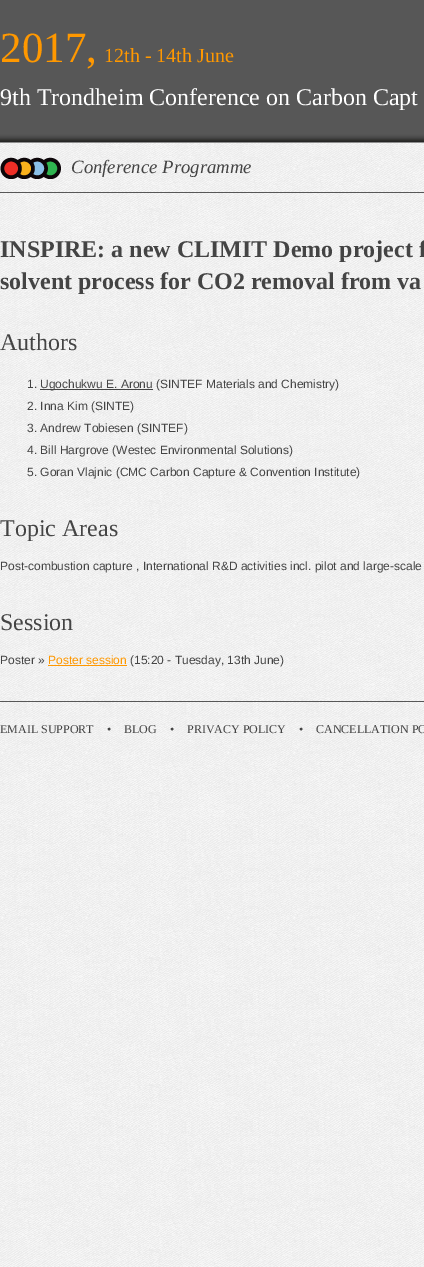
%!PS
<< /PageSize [424 1267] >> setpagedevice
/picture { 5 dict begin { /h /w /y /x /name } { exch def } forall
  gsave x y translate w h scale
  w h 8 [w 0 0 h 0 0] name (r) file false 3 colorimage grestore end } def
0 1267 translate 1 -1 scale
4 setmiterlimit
1 setgray
0 0 424 1267 rectfill
(img1.rgb) 0 143 424 1124 picture
(img2.rgb) 0 0 424 143 picture
0.341 setgray
0 192 424 1 rectfill
/LiberationSerif-Regular [43 0 0 -43 0 0] selectfont
1 0.596 0 setrgbcolor
0 62 moveto (2017,) show
/LiberationSerif-Regular [20 0 0 -20 0 0] selectfont
104 62 moveto (12th - 14th June) show
/LiberationSerif-Regular [24 0 0 -24 0 0] selectfont
1 setgray
0 105 moveto (9th Trondheim Conference on Carbon Capt) show
(img3.rgb) 0 157 61 22 picture
/LiberationSerif-Italic [18.75 0 0 -18.75 0 0] selectfont
0.267 setgray
71 173 moveto (Conference Programme) show
/LiberationSerif-Bold [24 0 0 -24 0 0] selectfont
0 257 moveto (INSPIRE: a new CLIMIT Demo project f) show
0 289 moveto (solvent process for CO2 removal from va) show
/LiberationSerif-Regular [24 0 0 -24 0 0] selectfont
0 350 moveto (Authors) show
/LiberationSans-Regular [12 0 0 -12 0 0] selectfont
27 388 moveto (1.) show
40 389 113 1 rectfill
40 388 moveto (Ugochukwu E. Aronu \(SINTEF Materials and Chemistry\)) show
27 410 moveto (2. Inna Kim \(SINTE\)) show
27 432 moveto (3. Andrew Tobiesen \(SINTEF\)) show
27 454 moveto (4. Bill Hargrove \(Westec Environmental Solutions\)) show
27 476 moveto (5. Goran Vlajnic \(CMC Carbon Capture & Convention Institute\)) show
/LiberationSerif-Regular [24 0 0 -24 0 0] selectfont
0 536 moveto (Topic Areas) show
/LiberationSans-Regular [12 0 0 -12 0 0] selectfont
0 570 moveto (Post-combustion capture , International R&D activities incl. pilot and large-scale) show
/LiberationSerif-Regular [24 0 0 -24 0 0] selectfont
0 630 moveto (Session) show
/LiberationSans-Regular [12 0 0 -12 0 0] selectfont
0 664 moveto (Poster ») show
1 0.596 0 setrgbcolor
48 664 moveto (Poster session) show
48 665 79 1 rectfill
0.267 setgray
130 664 moveto (\(15:20 - Tuesday, 13th June\)) show
0.341 setgray
0 701 424 1 rectfill
/LiberationSerif-Regular [12 0 0 -12 0 0] selectfont
0.267 setgray
0 733 moveto (EMAIL SUPPORT) show
107 733 moveto (•) show
124 733 moveto (BLOG) show
170 733 moveto (•) show
187 733 moveto (PRIVACY POLICY) show
299 733 moveto (•) show
316 733 moveto (CANCELLATION PO) show
showpage
